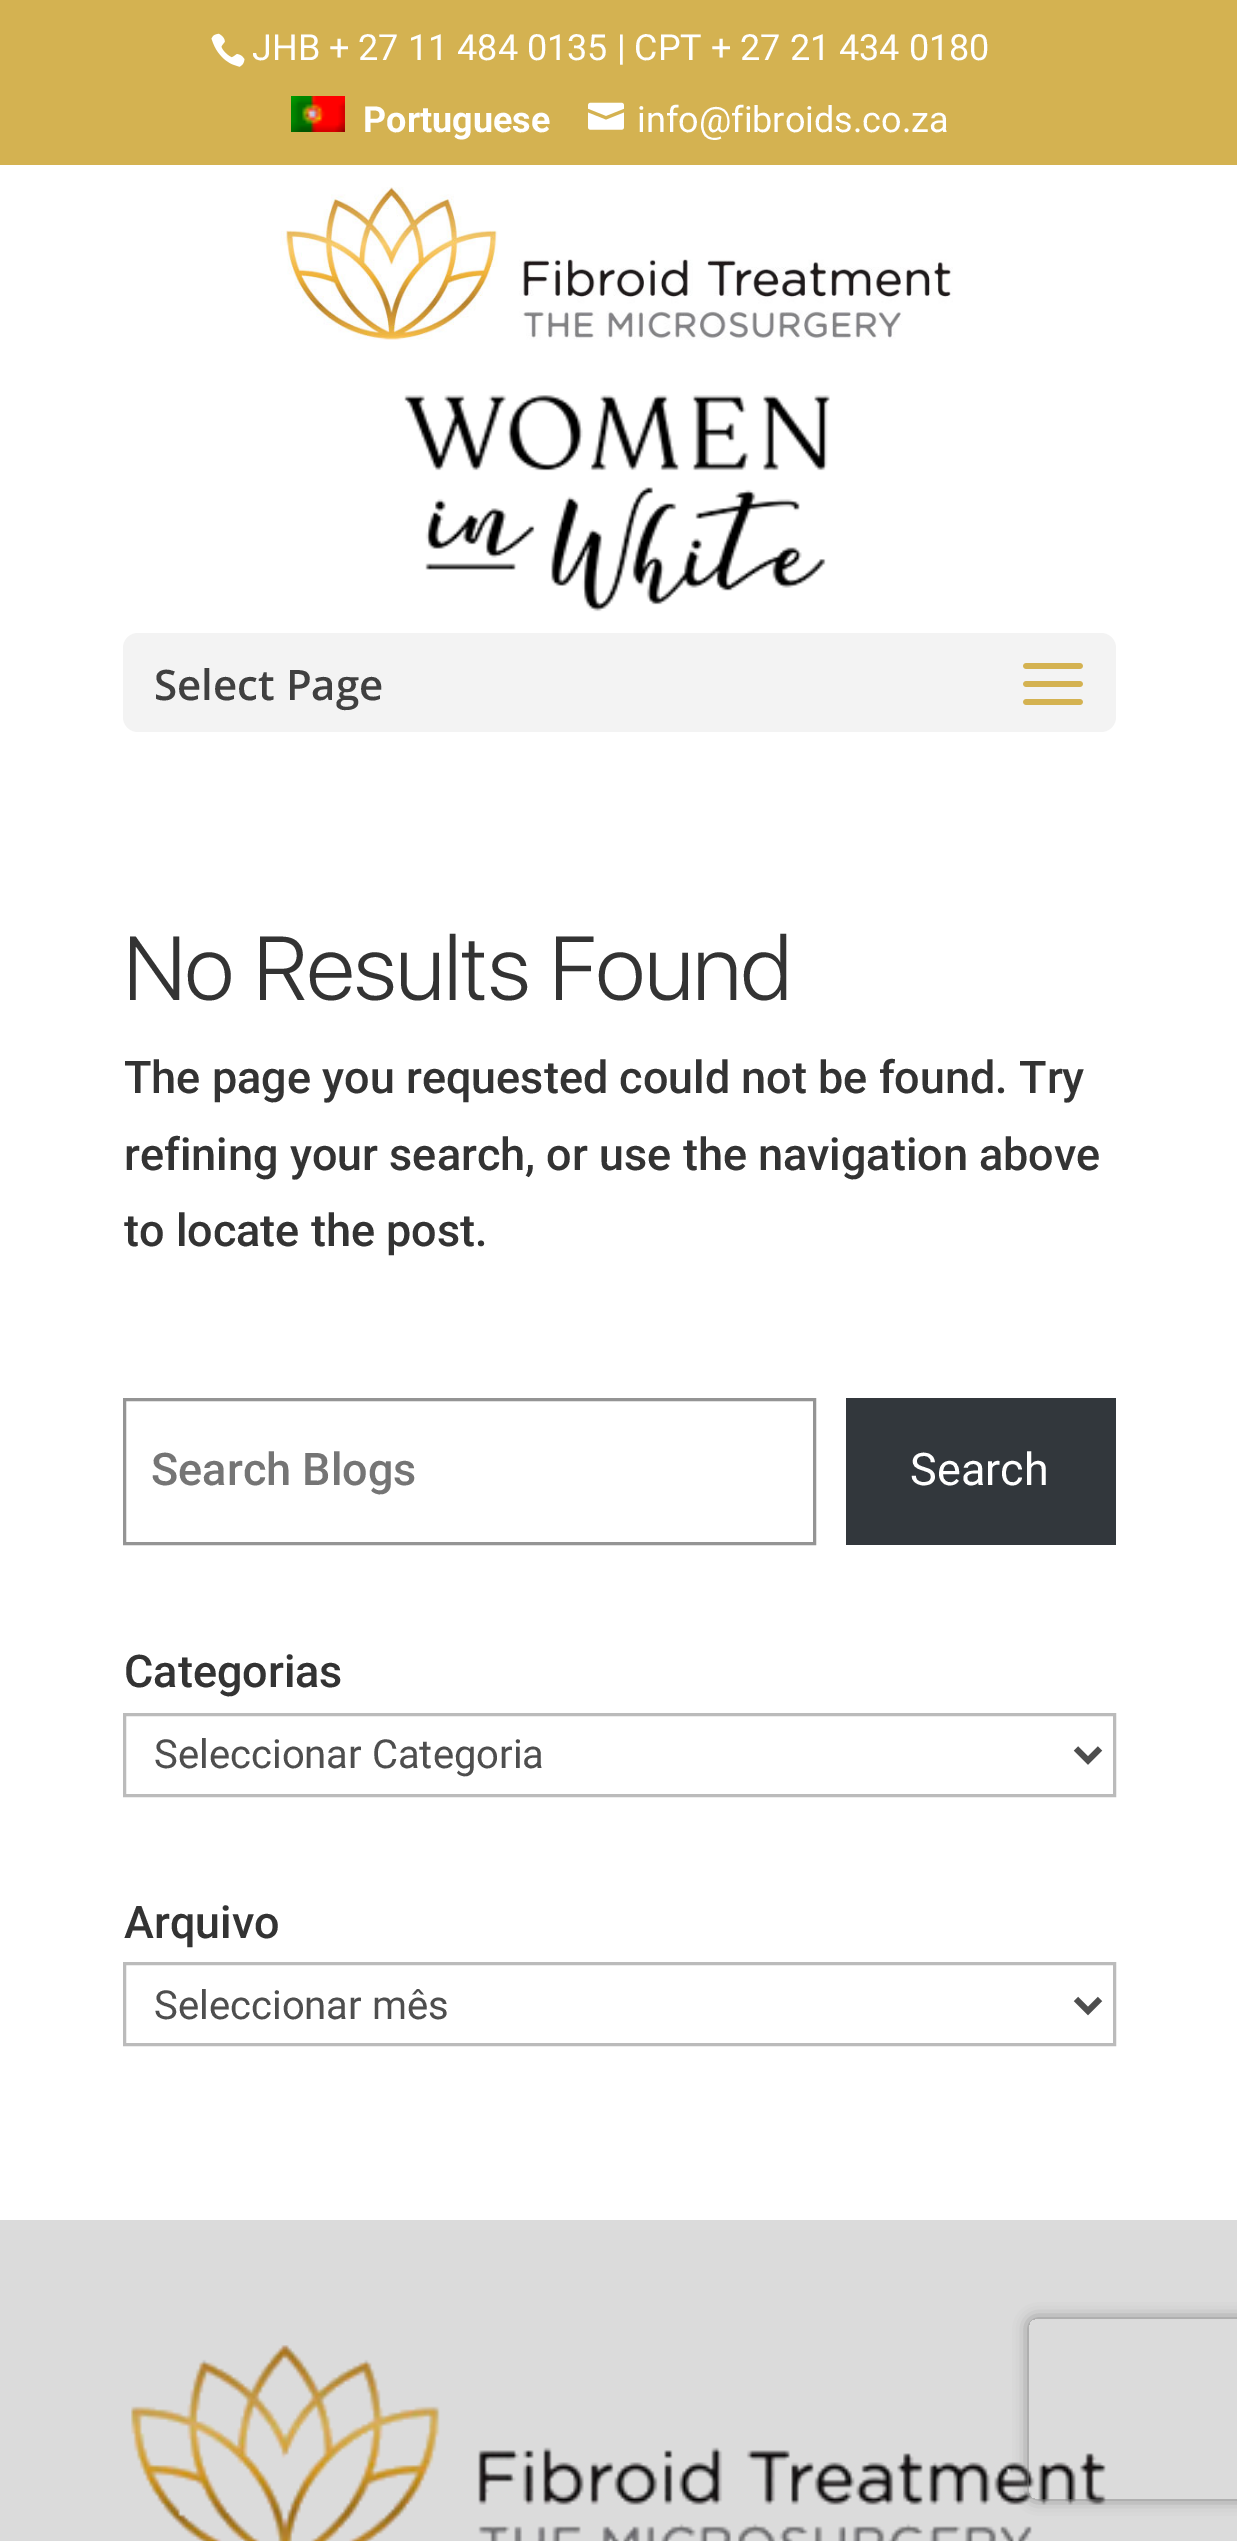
%!PS
<< /PageSize [1237 2541] /PageUsesTransparency true >> setpagedevice
/alpha { dup .setfillconstantalpha .setstrokeconstantalpha } def
/roundrect { 5 dict begin { /r /h /w /y /x } { exch def } forall
  x r add y moveto x w add y 2 copy h add r arct x w add y h add x 1 index r arct
  x y h add x y r arct x y 2 copy exch w add exch r arct closepath end } def
/shadow { 12 dict begin { /a /b /q /h /w /y /x } { exch def } forall gsave /was 0 def
  9 -2 -9 { dup b mul 4 div /e exch def 1 sub .425 mul 2.718 exch exp 1 add a .99 .min exch div /now exch def
    1 1 now sub 1 was sub div sub alpha /was now def
    w h .min e 2 mul add 0 gt { x e sub y e sub w e 2 mul add h e 2 mul add
      q e add b .6 mul add w h .min 2 div e add .min 0 .max roundrect fill } if } for grestore end } def
/picture { 5 dict begin { /h /w /y /x /name } { exch def } forall
  gsave x y translate w h scale
  w h 8 [w 0 0 h 0 0] name (r) file false 3 colorimage grestore end } def
0 .pushpdf14devicefilter
0 2541 translate 1 -1 scale
4 setmiterlimit
1 setgray
0 0 1237 2541 rectfill
0.831 0.698 0.318 setrgbcolor
0 0 1237 165 rectfill
(img1.rgb) 211 33 34 34 picture
/Roboto-Regular [36 0 0 -36 0 0] selectfont
1 setgray
252 60 moveto (JHB + 27 11 484 0135 | CPT + 27 21 434 0180) show
(img2.rgb) 291 96 54 36 picture
/Roboto-Bold [36 0 0 -36 0 0] selectfont
363 132 moveto (Portuguese) show
(img3.rgb) 588 102 36 28 picture
/Roboto-Regular [36 0 0 -36 0 0] selectfont
637 132 moveto (info@fibroids.co.za) show
(img4.rgb) 280 187 673 153 picture
(img5.rgb) 404 395 426 217 picture
0.953 setgray
123 633 993 99 15 roundrect fill
/OpenSans-SemiBold [42 0 0 -42 0 0] selectfont
0.251 setgray
154 700 moveto (Select Page) show
(img6.rgb) 1023 663 60 42 picture
/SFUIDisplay-Light [90 0 0 -90 0 0] selectfont
0.2 setgray
124 1000 moveto (No Results Found) show
/Roboto-Medium [45 0 0 -45 0 0] selectfont
124 1093 moveto (The page you requested could not be found. Try) show
124 1170 moveto (refining your search, or use the navigation above) show
124 1246 moveto (to locate the post.) show
0.58 setgray
3 setlinewidth
124.5 1399.5 690 144 rectstroke
0.459 setgray
151 1485 moveto (Search Blogs) show
0.196 0.216 0.235 setrgbcolor
846 1398 270 147 rectfill
/Roboto-Regular [45 0 0 -45 0 0] selectfont
1 setgray
910 1485 moveto (Search) show
/Roboto-Medium [45 0 0 -45 0 0] selectfont
0.2 setgray
124 1687 moveto (Categorias) show
0.733 setgray
124.5 1714.5 990 81 rectstroke
0.306 setgray
6 setlinewidth
newpath 1076 1748.5 moveto 1088 1760.5 lineto 1100 1748.5 lineto stroke
/Roboto-Regular [40 0 0 -40 0 0] selectfont
154 1768 moveto (Seleccionar Categoria) show
/Roboto-Medium [45 0 0 -45 0 0] selectfont
0.2 setgray
124 1938 moveto (Arquivo) show
0.733 setgray
3 setlinewidth
124.5 1963.5 990 81 rectstroke
0.306 setgray
6 setlinewidth
newpath 1076 1999 moveto 1088 2011 lineto 1100 1999 lineto stroke
/Roboto-Regular [40 0 0 -40 0 0] selectfont
154 2019 moveto (Seleccionar mês) show
0.859 setgray
0 2220 1237 321 rectfill
(img7.rgb) 131 2345 975 196 picture
gsave
newpath 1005 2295 moveto 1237 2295 lineto 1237 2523 lineto 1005 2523 lineto closepath 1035 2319 moveto 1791 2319 lineto 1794.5 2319 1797 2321.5 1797 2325 curveto 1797 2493 lineto 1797 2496.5 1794.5 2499 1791 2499 curveto 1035 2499 lineto 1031.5 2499 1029 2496.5 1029 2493 curveto 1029 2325 lineto 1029 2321.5 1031.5 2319 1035 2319 curveto closepath eoclip newpath
0.502 setgray
1029 2319 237 180 6 7.5 1 shadow
grestore
.poppdf14devicefilter showpage
